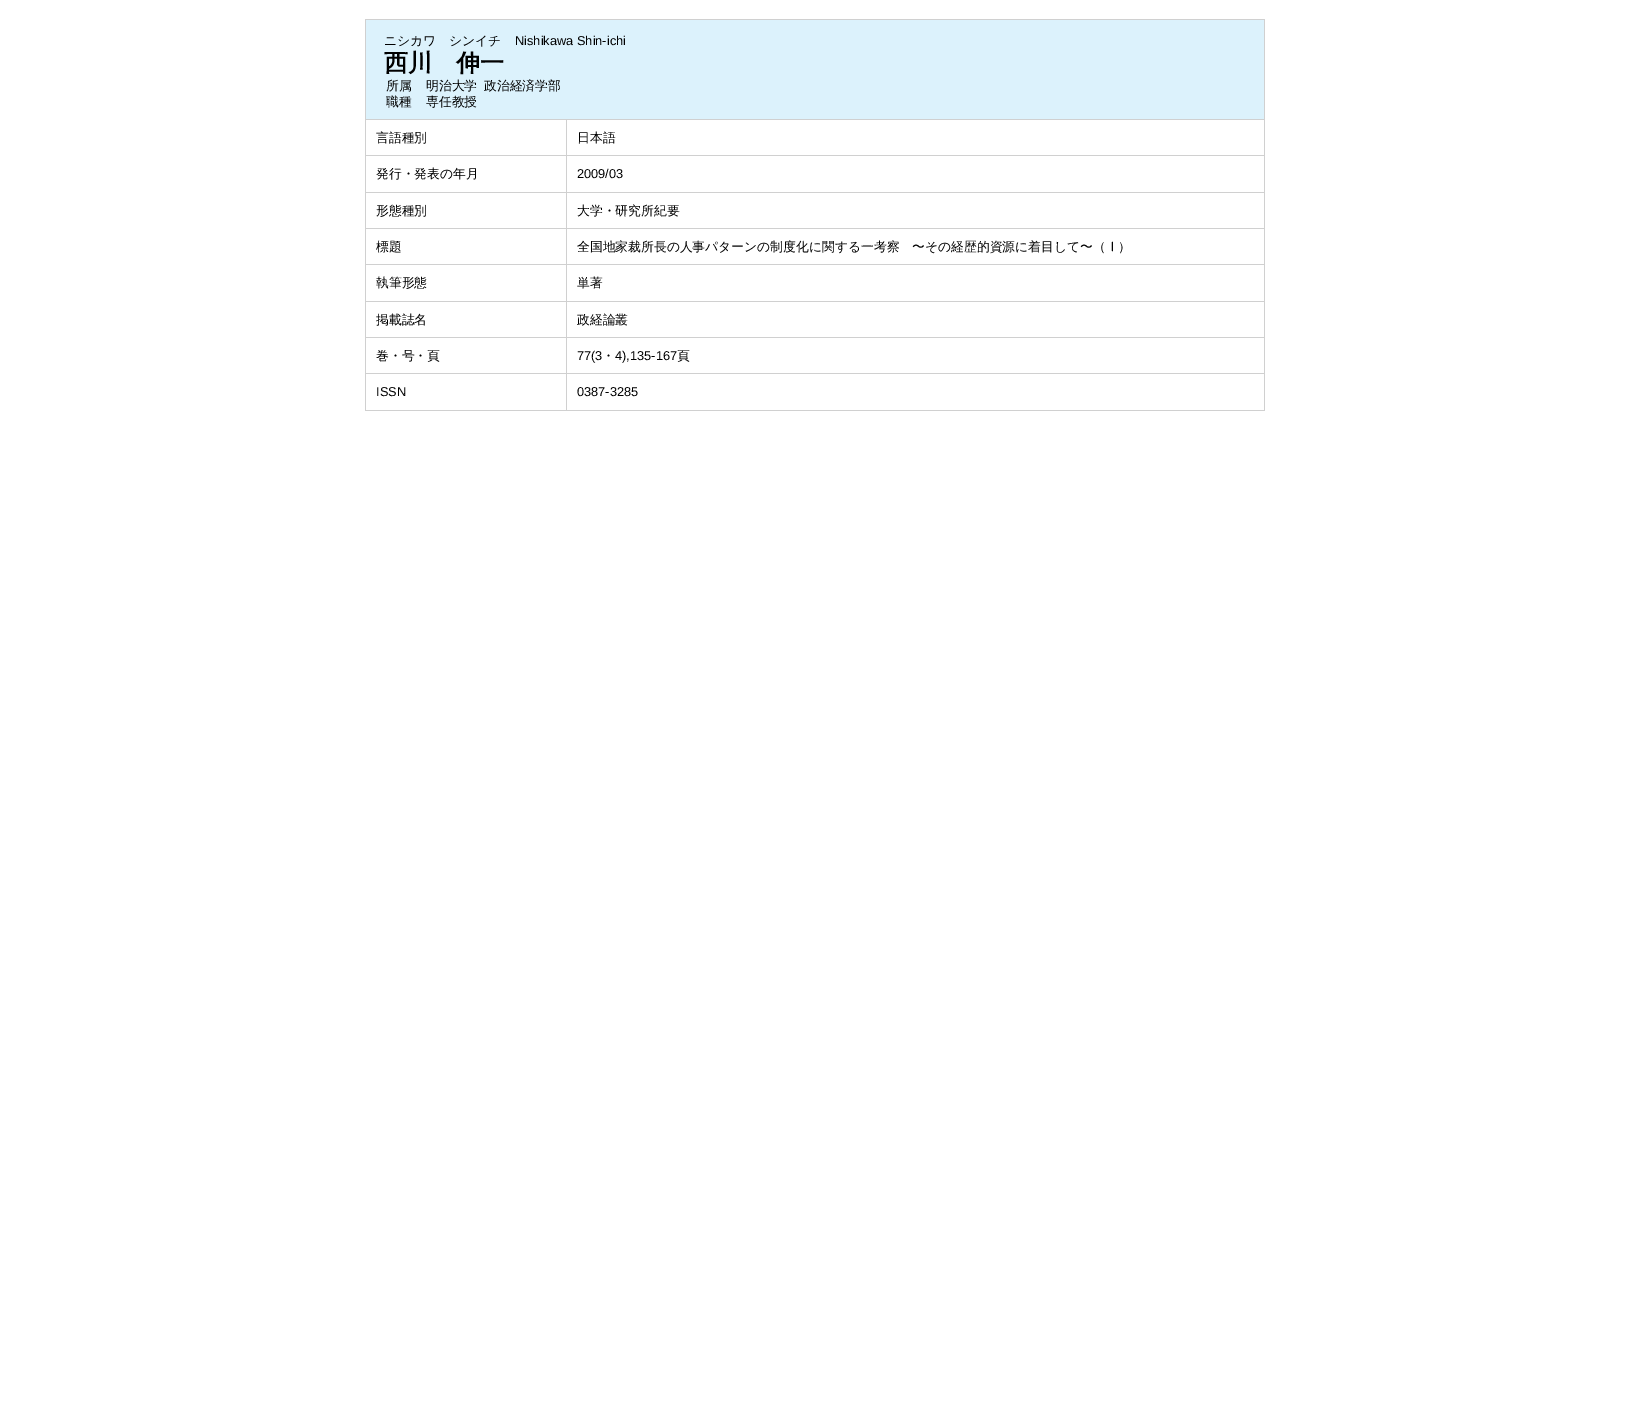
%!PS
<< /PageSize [1629 1413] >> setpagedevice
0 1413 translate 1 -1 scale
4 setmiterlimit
1 setgray
0 0 1629 1413 rectfill
0.816 setgray
365 19 900 392 rectfill
0.863 0.949 0.988 setrgbcolor
366 20 898 99 rectfill
/WenQuanYiZenHei-Medium [12.8 0 0 -12.8 0 0] selectfont
0 setgray
384 45 moveto (ニシカワ　シンイチ) show
/LiberationSans-Regular [12.8 0 0 -12.8 0 0] selectfont
515 45 moveto (Nishikawa Shin-ichi) show
/WenQuanYiZenHei-Bold [24 0 0 -24 0 0] selectfont
384 71 moveto (西川　伸一) show
/WenQuanYiZenHei-Medium [12.8 0 0 -12.8 0 0] selectfont
386 90 moveto (所属) show
426 90 moveto (明治大学) show
484 90 moveto (政治経済学部) show
386 106 moveto (職種) show
426 106 moveto (専任教授) show
1 setgray
366 120 200 35 rectfill
0 setgray
376 142 moveto (言語種別) show
1 setgray
567 120 697 35 rectfill
0 setgray
577 142 moveto (日本語) show
1 setgray
366 156 200 36 rectfill
0 setgray
376 178 moveto (発行・発表の年月) show
1 setgray
567 156 697 36 rectfill
/LiberationSans-Regular [12.8 0 0 -12.8 0 0] selectfont
0 setgray
577 178 moveto (2009/03) show
1 setgray
366 193 200 35 rectfill
/WenQuanYiZenHei-Medium [12.8 0 0 -12.8 0 0] selectfont
0 setgray
376 215 moveto (形態種別) show
1 setgray
567 193 697 35 rectfill
0 setgray
577 215 moveto (大学・研究所紀要) show
1 setgray
366 229 200 35 rectfill
0 setgray
376 251 moveto (標題) show
1 setgray
567 229 697 35 rectfill
0 setgray
577 251 moveto (全国地家裁所長の人事パターンの制度化に関する一考察　〜その経歴的資源に着目して〜（Ⅰ）) show
1 setgray
366 265 200 36 rectfill
0 setgray
376 287 moveto (執筆形態) show
1 setgray
567 265 697 36 rectfill
0 setgray
577 287 moveto (単著) show
1 setgray
366 302 200 35 rectfill
0 setgray
376 324 moveto (掲載誌名) show
1 setgray
567 302 697 35 rectfill
0 setgray
577 324 moveto (政経論叢) show
1 setgray
366 338 200 35 rectfill
0 setgray
376 360 moveto (巻・号・頁) show
1 setgray
567 338 697 35 rectfill
/LiberationSans-Regular [12.8 0 0 -12.8 0 0] selectfont
0 setgray
577 360 moveto (77\(3) show
/WenQuanYiZenHei-Medium [12.8 0 0 -12.8 0 0] selectfont
602 360 moveto (・) show
/LiberationSans-Regular [12.8 0 0 -12.8 0 0] selectfont
615 360 moveto (4\),135-167) show
/WenQuanYiZenHei-Medium [12.8 0 0 -12.8 0 0] selectfont
677 360 moveto (頁) show
1 setgray
366 374 200 36 rectfill
/LiberationSans-Regular [12.8 0 0 -12.8 0 0] selectfont
0 setgray
376 396 moveto (ISSN) show
1 setgray
567 374 697 36 rectfill
0 setgray
577 396 moveto (0387-3285) show
showpage
